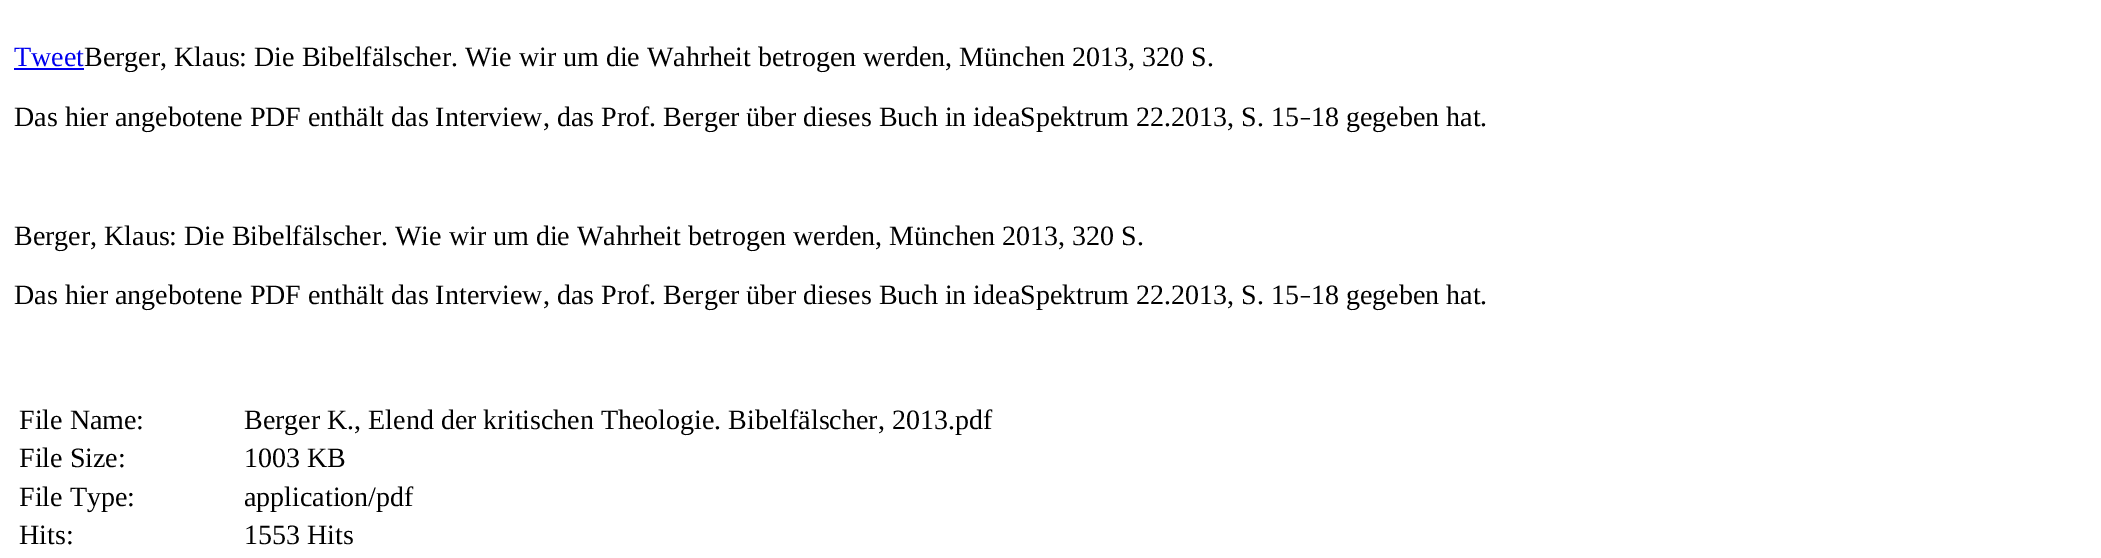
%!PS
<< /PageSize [2101 558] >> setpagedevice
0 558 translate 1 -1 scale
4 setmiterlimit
1 setgray
0 0 2101 558 rectfill
/LiberationSerif-Regular [28 0 0 -28 0 0] selectfont
0 setgray
84 66 moveto (Berger, Klaus: Die Bibelfälscher. Wie wir um die Wahrheit betrogen werden, München 2013, 320 S.) show
14 126 moveto (Das hier angebotene PDF enthält das Interview, das Prof. Berger über dieses Buch in ideaSpektrum 22.2013, S. 15) show
/Carlito-Regular [26 0 0 -26 0 0] selectfont
1299 126 moveto (–) show
/LiberationSerif-Regular [28 0 0 -28 0 0] selectfont
1311 126 moveto (18 gegeben hat.) show
14 245 moveto (Berger, Klaus: Die Bibelfälscher. Wie wir um die Wahrheit betrogen werden, München 2013, 320 S.) show
14 304 moveto (Das hier angebotene PDF enthält das Interview, das Prof. Berger über dieses Buch in ideaSpektrum 22.2013, S. 15) show
/Carlito-Regular [26 0 0 -26 0 0] selectfont
1299 304 moveto (–) show
/LiberationSerif-Regular [28 0 0 -28 0 0] selectfont
1311 304 moveto (18 gegeben hat.) show
0 0 0.933 setrgbcolor
14 66 moveto (Tweet) show
14 68 70 2 rectfill
0 setgray
19 429 moveto (File Name:) show
244 429 moveto (Berger K., Elend der kritischen Theologie. Bibelfälscher, 2013.pdf) show
19 467 moveto (File Size:) show
244 467 moveto (1003 KB) show
19 506 moveto (File Type:) show
244 506 moveto (application/pdf) show
19 544 moveto (Hits:) show
244 544 moveto (1553 Hits) show
showpage
